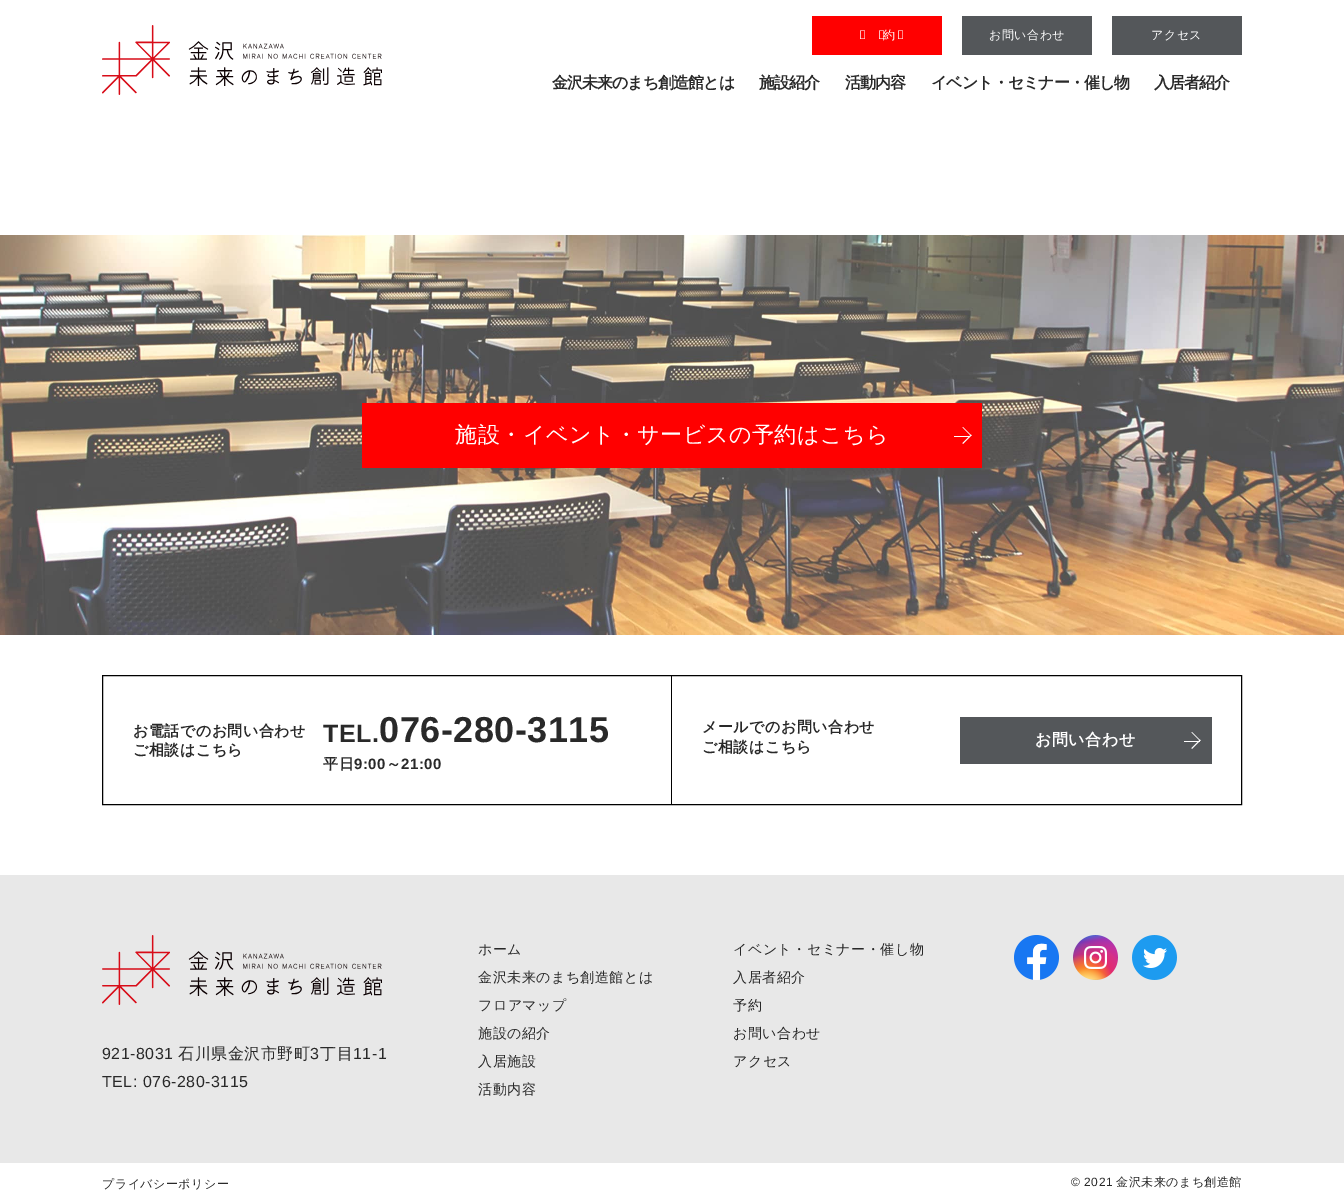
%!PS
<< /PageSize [1344 1192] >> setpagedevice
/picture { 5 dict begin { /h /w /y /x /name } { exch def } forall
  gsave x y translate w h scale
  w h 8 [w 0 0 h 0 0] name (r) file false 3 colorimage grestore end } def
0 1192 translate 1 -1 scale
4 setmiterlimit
1 setgray
0 0 1344 1192 rectfill
(img1.rgb) 102 25 280 70 picture
1 0 0 setrgbcolor
812 16 130 39 rectfill
/NotoSans-Medium [12 0 0 -12 0 0] selectfont
1 setgray
859 39 moveto 12 0 (予) ashow
/WenQuanYiZenHei-Medium [12 0 0 -12 0 0] selectfont
883 39 moveto 12 0 (約) ashow
0.329 0.341 0.353 setrgbcolor
962 16 130 39 rectfill
1 setgray
989 39 moveto 0.5 0 (お問い合わせ) ashow
0.329 0.341 0.353 setrgbcolor
1112 16 130 39 rectfill
1 setgray
1151 39 moveto 0.5 0 (アクセス) ashow
/WenQuanYiZenHei-Bold [16 0 0 -16 0 0] selectfont
0.161 setgray
552 88 moveto -1 0 (金沢未来のまち創造館とは) ashow
759 88 moveto -1 0 (施設紹介) ashow
845 88 moveto -1 0 (活動内容) ashow
931 88 moveto -1 0 (イベント・セミナー・催し物) ashow
1154 88 moveto -1 0 (入居者紹介) ashow
(img2.rgb) 0 235 1344 400 picture
1 0 0 setrgbcolor
362 403 620 65 rectfill
/WenQuanYiZenHei-Medium [22 0 0 -22 0 0] selectfont
1 setgray
455 442 moveto 0.5 0 (施設・イベント・サービスの予約はこちら) ashow
newpath 963 427 moveto 971.5 435.5 lineto 971 436 lineto 962.5 427.5 lineto closepath fill
954 436 16 1 rectfill
newpath 971 434.5 moveto 971.5 435.5 lineto 963 444 lineto 962.5 443 lineto closepath fill
0 setgray
102.5 675.5 1139 129 rectstroke
671 676 1 128 rectfill
/WenQuanYiZenHei-Bold [15 0 0 -15 0 0] selectfont
0.161 setgray
133 736 moveto 0.5 0 (お電話でのお問い合わせ) ashow
133 755 moveto 0.5 0 (ご相談はこちら) ashow
/LiberationSans-Bold [25 0 0 -25 0 0] selectfont
323 742 moveto 0.5 0 (TEL.) ashow
/LiberationSans-Bold [36 0 0 -36 0 0] selectfont
379 742 moveto 0.5 0 (076-280-3115) ashow
/WenQuanYiZenHei-Bold [15 0 0 -15 0 0] selectfont
323 769 moveto 0.5 0 (平日) ashow
/LiberationSans-Bold [15 0 0 -15 0 0] selectfont
354 769 moveto 0.5 0 (9:00) ashow
/WenQuanYiZenHei-Bold [15 0 0 -15 0 0] selectfont
386 769 moveto 0.5 0 (～) ashow
/LiberationSans-Bold [15 0 0 -15 0 0] selectfont
401 769 moveto 0.5 0 (21:00) ashow
/WenQuanYiZenHei-Bold [15 0 0 -15 0 0] selectfont
702 732 moveto 0.5 0 (メールでのお問い合わせ) ashow
702 752 moveto 0.5 0 (ご相談はこちら) ashow
0.329 0.341 0.353 setrgbcolor
960 717 252 47 rectfill
/WenQuanYiZenHei-Bold [16 0 0 -16 0 0] selectfont
1 setgray
1035 745 moveto 0.5 0 (お問い合わせ) ashow
newpath 1192 732 moveto 1200.5 740.5 lineto 1200 741 lineto 1191.5 732.5 lineto closepath fill
1184 741 16 1 rectfill
newpath 1200 739.5 moveto 1200.5 740.5 lineto 1192 749 lineto 1191.5 748 lineto closepath fill
0.91 setgray
0 875 1344 288 rectfill
(img3.rgb) 102 935 280 70 picture
/LiberationSans-Regular [16 0 0 -16 0 0] selectfont
0.161 setgray
102 1059 moveto 0.5 0 (921-8031) ashow
/WenQuanYiZenHei-Medium [16 0 0 -16 0 0] selectfont
178 1059 moveto 0.5 0 (石川県金沢市野町) ashow
/LiberationSans-Regular [16 0 0 -16 0 0] selectfont
310 1059 moveto 0.5 0 (3) ashow
/WenQuanYiZenHei-Medium [16 0 0 -16 0 0] selectfont
320 1059 moveto 0.5 0 (丁目) ashow
/LiberationSans-Regular [16 0 0 -16 0 0] selectfont
353 1059 moveto 0.5 0 (11-1) ashow
102 1087 moveto 0.5 0 (TEL: 076-280-3115) ashow
/WenQuanYiZenHei-Medium [14 0 0 -14 0 0] selectfont
478 954 moveto 0.5 0 (ホーム) ashow
478 982 moveto 0.5 0 (金沢未来のまち創造館とは) ashow
478 1010 moveto 0.5 0 (フロアマップ) ashow
478 1038 moveto 0.5 0 (施設の紹介) ashow
478 1066 moveto 0.5 0 (入居施設) ashow
478 1094 moveto 0.5 0 (活動内容) ashow
733 954 moveto 0.5 0 (イベント・セミナー・催し物) ashow
733 982 moveto 0.5 0 (入居者紹介) ashow
733 1010 moveto 0.5 0 (予約) ashow
733 1038 moveto 0.5 0 (お問い合わせ) ashow
733 1066 moveto 0.5 0 (アクセス) ashow
(img4.rgb) 1014 935 45 45 picture
(img5.rgb) 1073 935 45 45 picture
(img6.rgb) 1132 935 45 45 picture
/WenQuanYiZenHei-Medium [12 0 0 -12 0 0] selectfont
102 1188 moveto 0.5 0 (プライバシーポリシー) ashow
/LiberationSans-Regular [12 0 0 -12 0 0] selectfont
1071 1186 moveto 0.5 0 (© 2021) ashow
/WenQuanYiZenHei-Medium [12 0 0 -12 0 0] selectfont
1116 1186 moveto 0.5 0 (金沢未来のまち創造館) ashow
showpage
